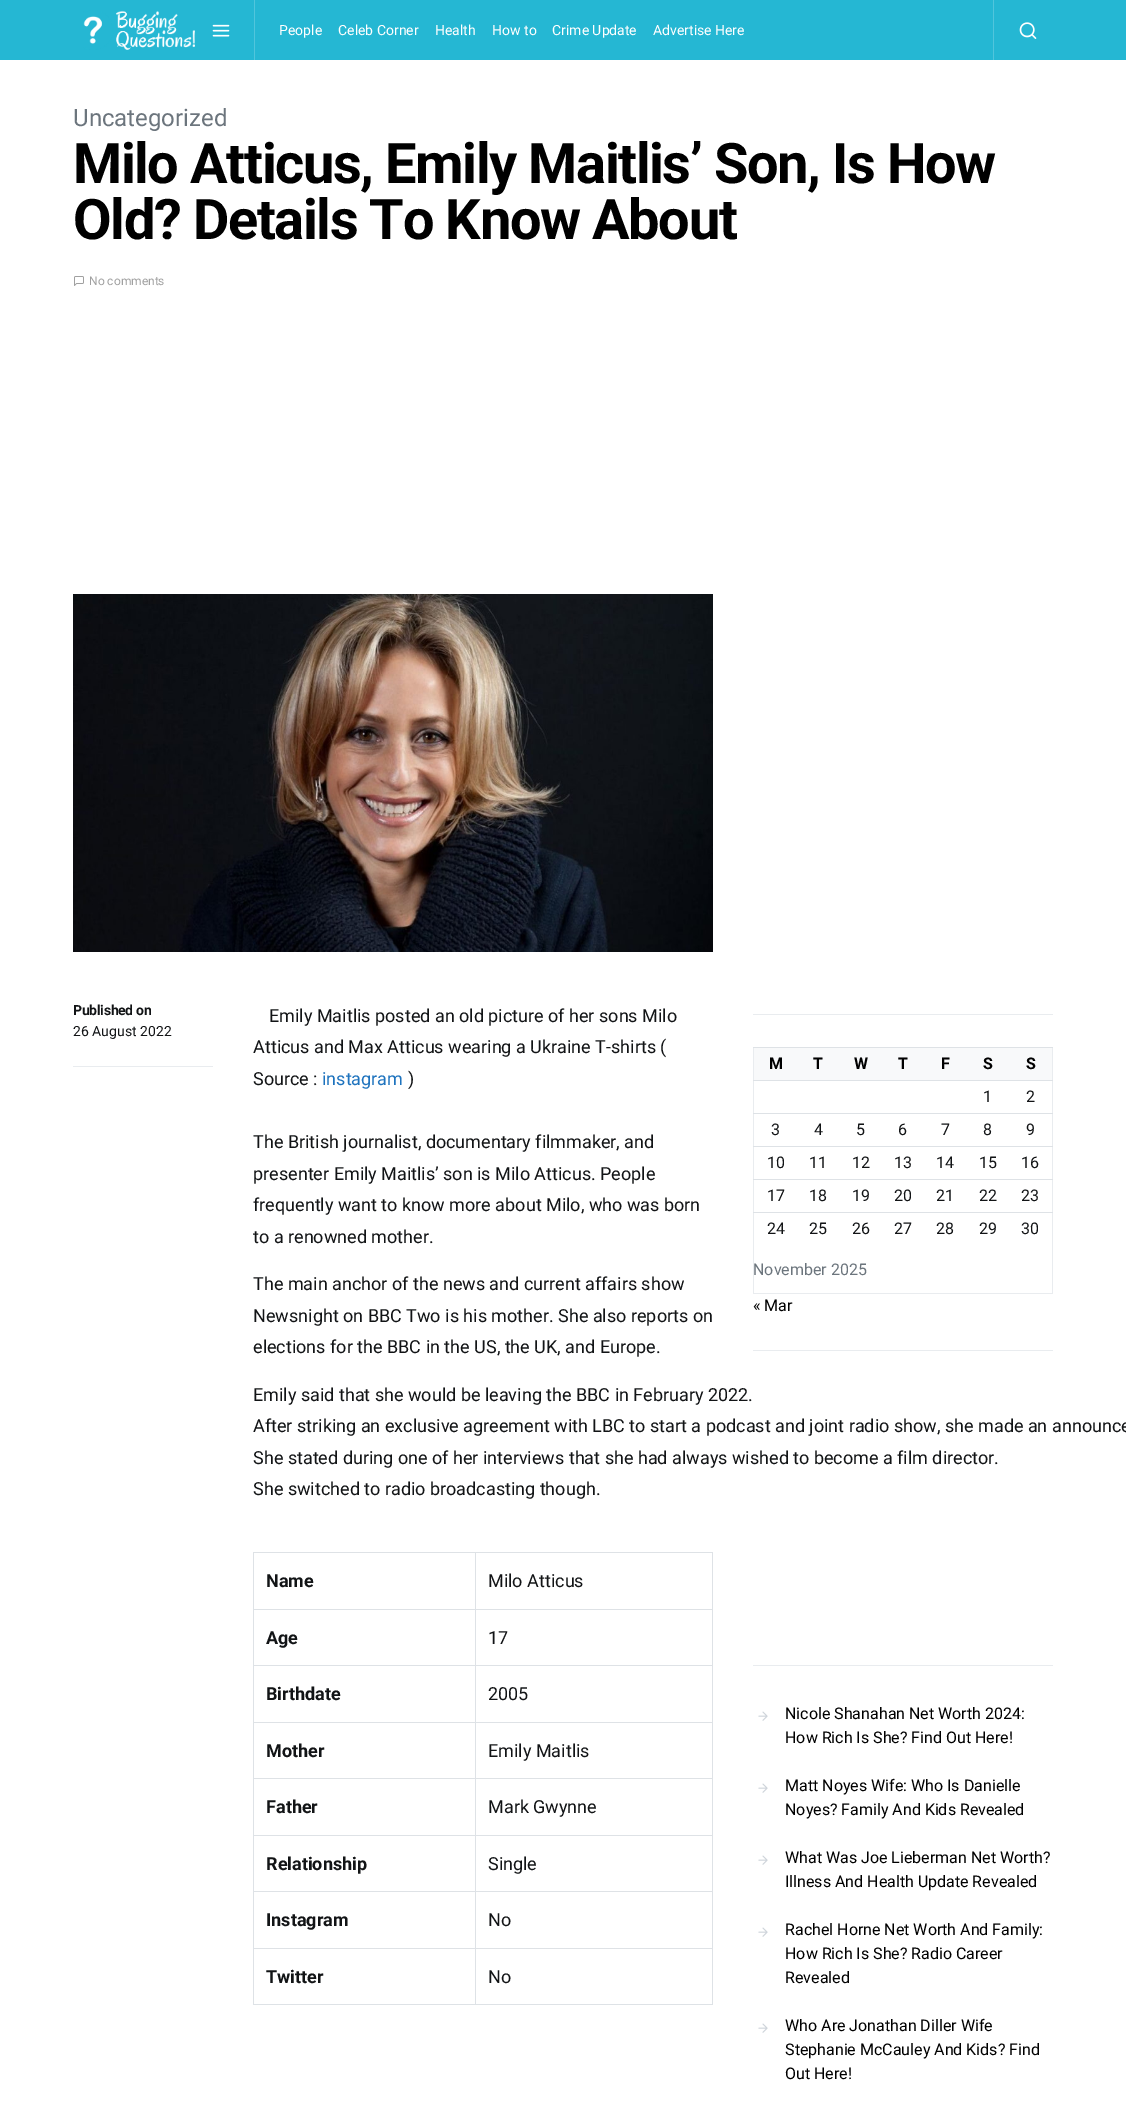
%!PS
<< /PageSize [1126 2122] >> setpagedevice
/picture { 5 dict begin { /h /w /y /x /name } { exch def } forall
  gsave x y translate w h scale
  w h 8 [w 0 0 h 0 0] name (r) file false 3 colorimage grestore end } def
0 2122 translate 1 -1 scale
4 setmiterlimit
1 setgray
0 0 1126 2122 rectfill
0.145 0.718 0.827 setrgbcolor
0 0 1126 60 rectfill
(img1.rgb) 83 10 112 40 picture
(img2.rgb) 212 24 18 13 picture
0.318 0.773 0.863 setrgbcolor
254 0 1 60 rectfill
/Roboto-Regular [14 0 0 -14 0 0] selectfont
1 setgray
279 35 moveto (People) show
338 35 moveto (Celeb Corner) show
435 35 moveto (Health) show
492 35 moveto (How to) show
552 35 moveto (Crime Update) show
653 35 moveto (Advertise Here) show
0.318 0.773 0.863 setrgbcolor
993 0 1 60 rectfill
(img3.rgb) 1019 22 18 17 picture
/Roboto-Regular [24 0 0 -24 0 0] selectfont
0.424 0.459 0.49 setrgbcolor
73 126 moveto (Uncategorized) show
/Roboto-Bold [56 0 0 -56 0 0] selectfont
0 setgray
73 183 moveto -1.4 0 (Milo Atticus, Emily Maitlis’ Son, Is How) ashow
73 239 moveto -1.4 0 (Old? Details To Know About) ashow
(img4.rgb) 74 276 10 10 picture
/Roboto-Regular [12 0 0 -12 0 0] selectfont
0.627 setgray
89 285 moveto (No comments) show
(img5.rgb) 73 594 640 358 picture
0.914 0.925 0.937 setrgbcolor
73 1066 140 1 rectfill
/Roboto-Bold [14 0 0 -14 0 0] selectfont
0.071 0.078 0.086 setrgbcolor
73 1015 moveto -0.3 0 (Published on) ashow
/Roboto-Regular [14 0 0 -14 0 0] selectfont
73 1036 moveto (26 August 2022) show
/Roboto-Regular [18 0 0 -18 0 0] selectfont
269 1022 moveto (Emily Maitlis posted an old picture of her sons Milo) show
253 1053 moveto (Atticus and Max Atticus wearing a Ukraine T-shirts \() show
253 1085 moveto (Source :) show
0.118 0.451 0.745 setrgbcolor
322 1085 moveto (instagram) show
0.071 0.078 0.086 setrgbcolor
408 1085 moveto (\)) show
253 1148 moveto (The British journalist, documentary filmmaker, and) show
253 1180 moveto (presenter Emily Maitlis’ son is Milo Atticus. People) show
253 1211 moveto (frequently want to know more about Milo, who was born) show
253 1243 moveto (to a renowned mother.) show
253 1290 moveto (The main anchor of the news and current affairs show) show
253 1322 moveto (Newsnight on BBC Two is his mother. She also reports on) show
253 1353 moveto (elections for the BBC in the US, the UK, and Europe.) show
253 1401 moveto (Emily said that she would be leaving the BBC in February 2022.) show
253 1432 moveto (After striking an exclusive agreement with LBC to start a podcast and joint radio show, she made an announce) show
253 1464 moveto (She stated during one of her interviews that she had always wished to become a film director.) show
253 1495 moveto (She switched to radio broadcasting though.) show
0.871 0.886 0.902 setrgbcolor
253 1552 460 1 rectfill
712 1552 1 453 rectfill
253 2004 460 1 rectfill
253 1552 1 453 rectfill
/Roboto-Bold [18 0 0 -18 0 0] selectfont
0.071 0.078 0.086 setrgbcolor
266 1587 moveto (Name) show
0.871 0.886 0.902 setrgbcolor
475 1609 238 1 rectfill
475 1665 238 1 rectfill
475 1722 238 1 rectfill
475 1778 238 1 rectfill
475 1835 238 1 rectfill
475 1891 238 1 rectfill
475 1948 238 1 rectfill
475 1948 1 57 rectfill
253 1948 223 1 rectfill
475 1891 1 58 rectfill
253 1891 223 1 rectfill
475 1835 1 57 rectfill
253 1835 223 1 rectfill
475 1778 1 58 rectfill
253 1778 223 1 rectfill
475 1722 1 57 rectfill
253 1722 223 1 rectfill
475 1665 1 58 rectfill
253 1665 223 1 rectfill
475 1609 1 57 rectfill
253 1609 223 1 rectfill
475 1552 1 58 rectfill
/Roboto-Regular [18 0 0 -18 0 0] selectfont
0.071 0.078 0.086 setrgbcolor
488 1587 moveto (Milo Atticus) show
/Roboto-Bold [18 0 0 -18 0 0] selectfont
266 1644 moveto (Age) show
/Roboto-Regular [18 0 0 -18 0 0] selectfont
488 1644 moveto (17) show
/Roboto-Bold [18 0 0 -18 0 0] selectfont
266 1700 moveto (Birthdate) show
/Roboto-Regular [18 0 0 -18 0 0] selectfont
488 1700 moveto (2005) show
/Roboto-Bold [18 0 0 -18 0 0] selectfont
266 1757 moveto (Mother) show
/Roboto-Regular [18 0 0 -18 0 0] selectfont
488 1757 moveto (Emily Maitlis) show
/Roboto-Bold [18 0 0 -18 0 0] selectfont
266 1813 moveto (Father) show
/Roboto-Regular [18 0 0 -18 0 0] selectfont
488 1813 moveto (Mark Gwynne) show
/Roboto-Bold [18 0 0 -18 0 0] selectfont
266 1870 moveto (Relationship) show
/Roboto-Regular [18 0 0 -18 0 0] selectfont
488 1870 moveto (Single) show
/Roboto-Bold [18 0 0 -18 0 0] selectfont
266 1926 moveto (Instagram) show
/Roboto-Regular [18 0 0 -18 0 0] selectfont
488 1926 moveto (No) show
/Roboto-Bold [18 0 0 -18 0 0] selectfont
266 1983 moveto (Twitter) show
/Roboto-Regular [18 0 0 -18 0 0] selectfont
488 1983 moveto (No) show
0.914 0.925 0.937 setrgbcolor
753 1014 300 1 rectfill
753 1350 300 1 rectfill
1052 1047 1 247 rectfill
753 1293 300 1 rectfill
753 1047 1 247 rectfill
0.973 0.976 0.98 setrgbcolor
754 1048 298 32 rectfill
/Roboto-Bold [16 0 0 -16 0 0] selectfont
0 setgray
769 1069 moveto (M) show
813 1069 moveto (T) show
854 1069 moveto (W) show
898 1069 moveto (T) show
941 1069 moveto (F) show
983 1069 moveto (S) show
0.871 0.886 0.902 setrgbcolor
753 1047 300 1 rectfill
0 setgray
1026 1069 moveto (S) show
/Roboto-Regular [16 0 0 -16 0 0] selectfont
0.071 0.078 0.086 setrgbcolor
983 1102 moveto (1) show
0.871 0.886 0.902 setrgbcolor
753 1080 300 1 rectfill
0.071 0.078 0.086 setrgbcolor
1026 1102 moveto (2) show
771 1135 moveto (3) show
814 1135 moveto (4) show
856 1135 moveto (5) show
898 1135 moveto (6) show
941 1135 moveto (7) show
983 1135 moveto (8) show
0.871 0.886 0.902 setrgbcolor
753 1113 300 1 rectfill
0.071 0.078 0.086 setrgbcolor
1026 1135 moveto (9) show
767 1168 moveto (10) show
809 1168 moveto (11) show
852 1168 moveto (12) show
894 1168 moveto (13) show
936 1168 moveto (14) show
979 1168 moveto (15) show
0.871 0.886 0.902 setrgbcolor
753 1146 300 1 rectfill
0.071 0.078 0.086 setrgbcolor
1021 1168 moveto (16) show
767 1201 moveto (17) show
809 1201 moveto (18) show
852 1201 moveto (19) show
894 1201 moveto (20) show
936 1201 moveto (21) show
979 1201 moveto (22) show
0.871 0.886 0.902 setrgbcolor
753 1179 300 1 rectfill
0.071 0.078 0.086 setrgbcolor
1021 1201 moveto (23) show
767 1234 moveto (24) show
809 1234 moveto (25) show
852 1234 moveto (26) show
894 1234 moveto (27) show
936 1234 moveto (28) show
979 1234 moveto (29) show
0.871 0.886 0.902 setrgbcolor
753 1212 300 1 rectfill
0.071 0.078 0.086 setrgbcolor
1021 1234 moveto (30) show
0.424 0.459 0.49 setrgbcolor
753 1275 moveto (November 2025) show
0 setgray
753 1311 moveto (« Mar) show
0.914 0.925 0.937 setrgbcolor
753 1665 300 1 rectfill
(img6.rgb) 758 1711 10 10 picture
0 setgray
785 1719 moveto (Nicole Shanahan Net Worth 2024:) show
785 1743 moveto (How Rich Is She? Find Out Here!) show
(img6.rgb) 758 1783 10 10 picture
785 1791 moveto (Matt Noyes Wife: Who Is Danielle) show
785 1815 moveto (Noyes? Family And Kids Revealed) show
(img6.rgb) 758 1855 10 10 picture
785 1863 moveto (What Was Joe Lieberman Net Worth?) show
785 1887 moveto (Illness And Health Update Revealed) show
(img6.rgb) 758 1927 10 10 picture
785 1935 moveto (Rachel Horne Net Worth And Family:) show
785 1959 moveto (How Rich Is She? Radio Career) show
785 1983 moveto (Revealed) show
(img6.rgb) 758 2023 10 10 picture
785 2031 moveto (Who Are Jonathan Diller Wife) show
785 2055 moveto (Stephanie McCauley And Kids? Find) show
785 2079 moveto (Out Here!) show
showpage
